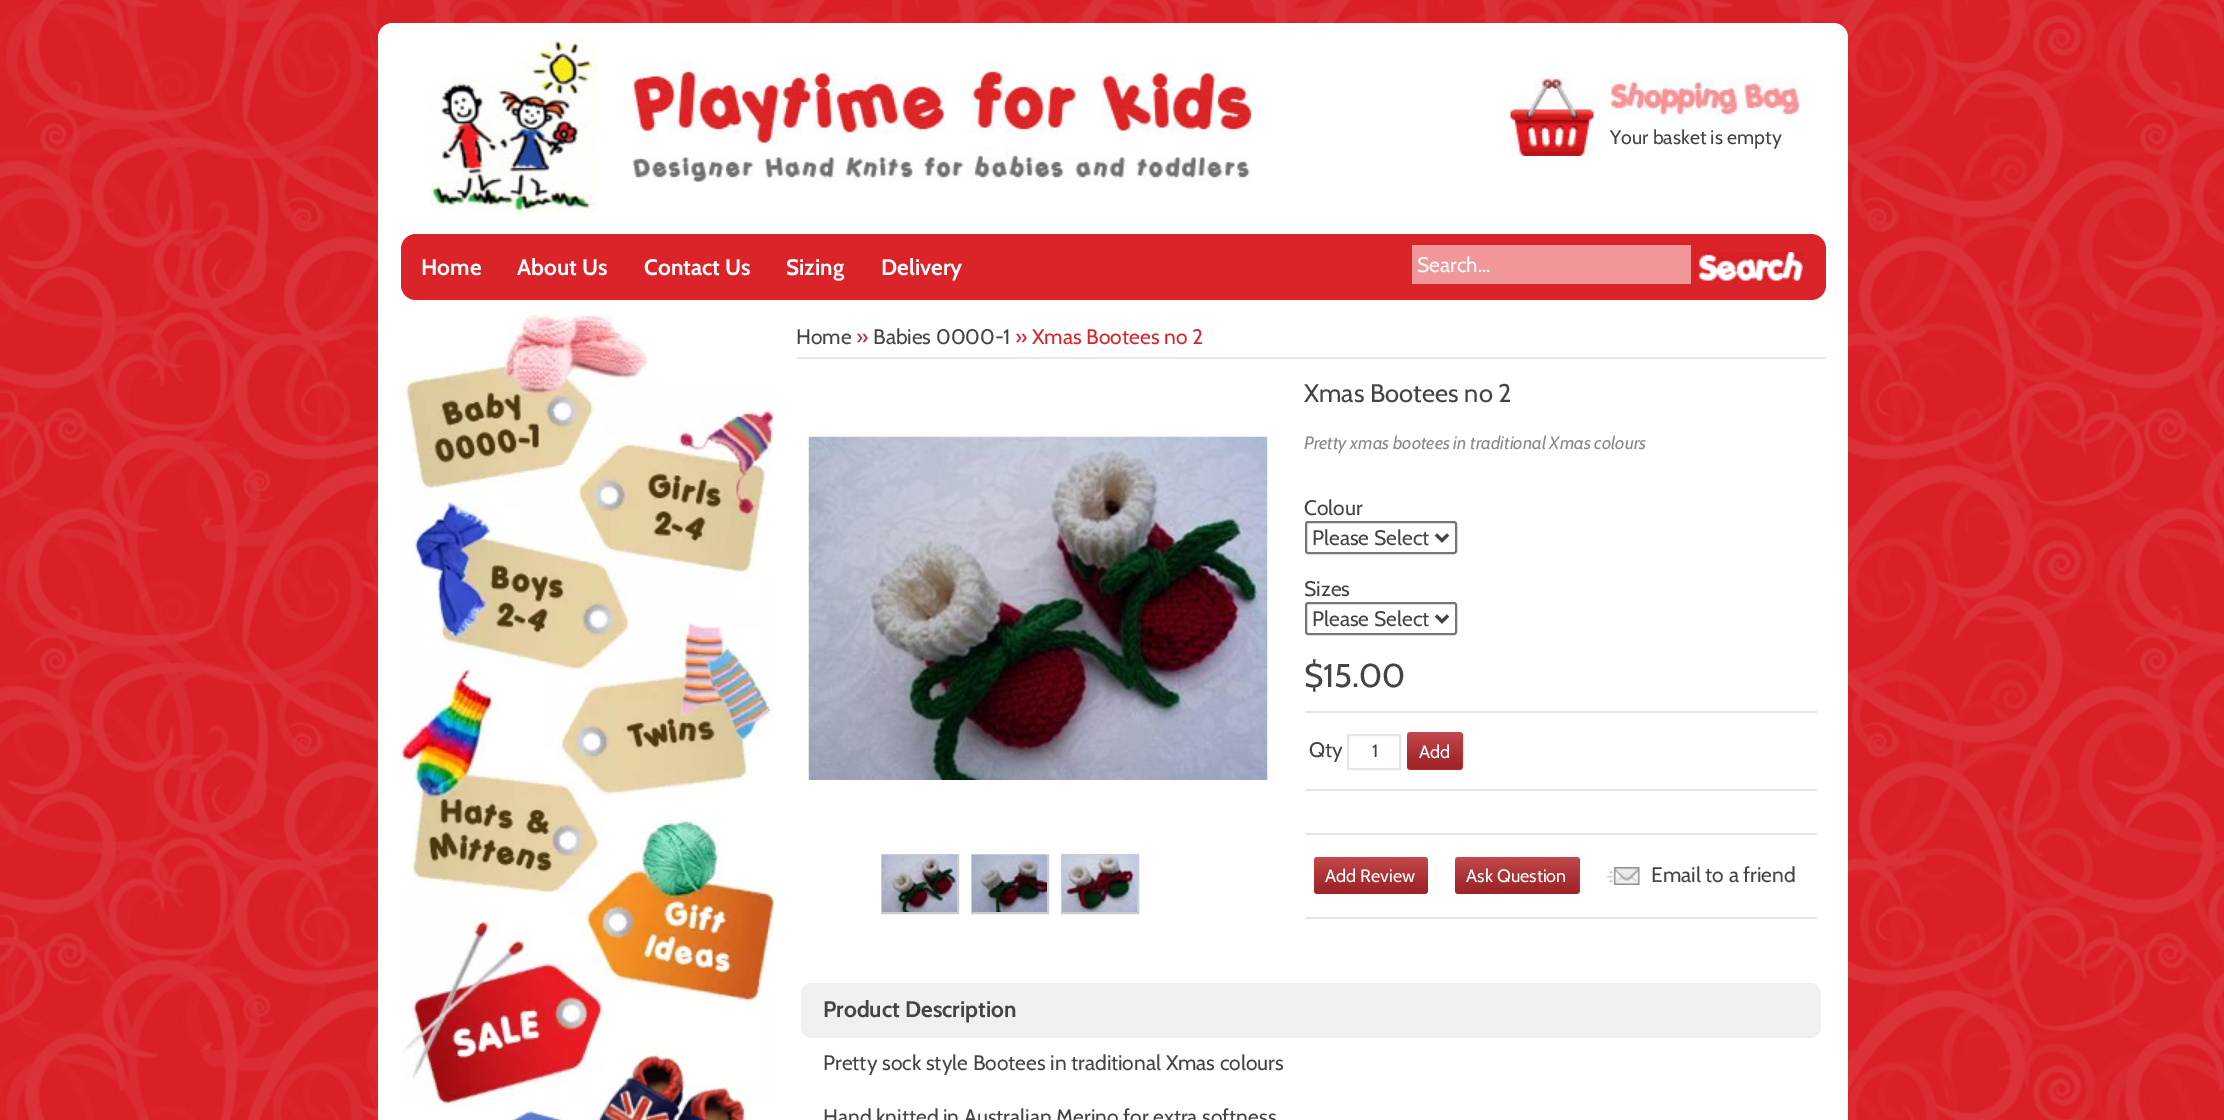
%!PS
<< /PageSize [2224 1120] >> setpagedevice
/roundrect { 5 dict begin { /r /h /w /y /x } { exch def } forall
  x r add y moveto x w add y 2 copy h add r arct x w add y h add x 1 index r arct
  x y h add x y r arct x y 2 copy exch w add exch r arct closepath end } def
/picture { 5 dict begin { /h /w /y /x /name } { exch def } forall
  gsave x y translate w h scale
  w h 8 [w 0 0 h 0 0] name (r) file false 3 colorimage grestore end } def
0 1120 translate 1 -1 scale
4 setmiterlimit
1 setgray
0 0 2224 1120 rectfill
(img1.rgb) 0 0 2224 1120 picture
newpath 393 23 moveto 1833 23 lineto 1841.5 23 1848 29.5 1848 38 curveto 1848 300 lineto 378 300 lineto 378 38 lineto 378 29.5 384.5 23 393 23 curveto closepath fill
(img2.rgb) 429 37 822 176 picture
(img3.rgb) 1510 78 290 78 picture
/Cabin-Regular [19.5 0 0 -19.5 0 0] selectfont
0.267 setgray
1610 144 moveto (Your basket is empty) show
0.855 0.141 0.161 setrgbcolor
401 234 1425 66 15 roundrect fill
/Cabin-Bold [22.5 0 0 -22.5 0 0] selectfont
1 setgray
421 275 moveto (Home) show
517 275 moveto (About Us) show
644 275 moveto (Contact Us) show
786 275 moveto (Sizing) show
881 275 moveto (Delivery) show
0.945 0.588 0.6 setrgbcolor
1412 245 279 39 rectfill
/Cabin-Regular [21 0 0 -21 0 0] selectfont
1 setgray
1417 272 moveto (Search...) show
(img4.rgb) 1698 252 105 29 picture
378 300 1470 820 rectfill
(img5.rgb) 400 315 374 805 picture
0.91 setgray
797 357 1029 2 rectfill
0.267 setgray
796 344 moveto (Home) show
0.855 0.141 0.161 setrgbcolor
856 344 moveto (») show
0.267 setgray
873 344 moveto (Babies 0000-1) show
0.855 0.141 0.161 setrgbcolor
1015 344 moveto (» Xmas Bootees no 2) show
(img6.rgb) 808 436 460 344 picture
0.8 setgray
2 setlinewidth
882 855 76 58 rectstroke
(img7.rgb) 882 855 75 57 picture
972 855 76 58 rectstroke
(img8.rgb) 972 855 75 57 picture
1062 855 76 58 rectstroke
(img9.rgb) 1062 855 75 57 picture
/Cabin-Regular [25.5 0 0 -25.5 0 0] selectfont
0.267 setgray
1304 402 moveto (Xmas Bootees no 2) show
/Cabin-Italic [18 0 0 -18 0 0] selectfont
0.541 0.537 0.537 setrgbcolor
1304 449 moveto (Pretty xmas bootees in traditional Xmas colours) show
/Cabin-Regular [21 0 0 -21 0 0] selectfont
0.267 setgray
1304 515 moveto (Colour) show
0.463 setgray
1306 522 150 31 2 roundrect stroke
0.267 setgray
3 setlinewidth
newpath 1436 534.5 moveto 1442 540.5 lineto 1448 534.5 lineto stroke
1312 545 moveto (Please Select) show
1304 596 moveto (Sizes) show
0.463 setgray
2 setlinewidth
1306 603 150 31 2 roundrect stroke
0.267 setgray
3 setlinewidth
newpath 1436 615.5 moveto 1442 621.5 lineto 1448 615.5 lineto stroke
1312 626 moveto (Please Select) show
/Cabin-Regular [33 0 0 -33 0 0] selectfont
1304 687 moveto ($15.00) show
0.898 setgray
1305 711 512 2 rectfill
1305 789 512 2 rectfill
/Cabin-Regular [21 0 0 -21 0 0] selectfont
0.267 setgray
1309 757 moveto (Qty) show
0.898 setgray
2 setlinewidth
1348 735 52 34 rectstroke
/Cabin-Regular [18 0 0 -18 0 0] selectfont
0.267 setgray
1372 757 moveto (1) show
0.855 0.141 0.161 setrgbcolor
1407 732 56 38 3 roundrect fill
(img10.rgb) 1407 732 56 38 picture
1 setgray
1419 758 moveto (Add) show
0.898 setgray
1305 833 512 2 rectfill
1305 917 512 2 rectfill
0.855 0.141 0.161 setrgbcolor
1314 857 114 37 3 roundrect fill
(img11.rgb) 1314 856 114 38 picture
1 setgray
1325 882 moveto (Add Review) show
0.855 0.141 0.161 setrgbcolor
1455 857 125 37 3 roundrect fill
(img12.rgb) 1455 856 125 38 picture
1 setgray
1466 882 moveto (Ask Question) show
(img13.rgb) 1606 867 34 18 picture
/Cabin-Regular [21 0 0 -21 0 0] selectfont
0.267 setgray
1651 882 moveto (Email to a friend) show
0.941 setgray
801 983 1020 55 11 roundrect fill
/Cabin-Bold [22.5 0 0 -22.5 0 0] selectfont
0.267 setgray
823 1017 moveto (Product Description) show
/Cabin-Regular [21 0 0 -21 0 0] selectfont
823 1070 moveto (Pretty sock style Bootees in traditional Xmas colours) show
823 1124 moveto (Hand knitted in Australian Merino for extra softness) show
showpage
